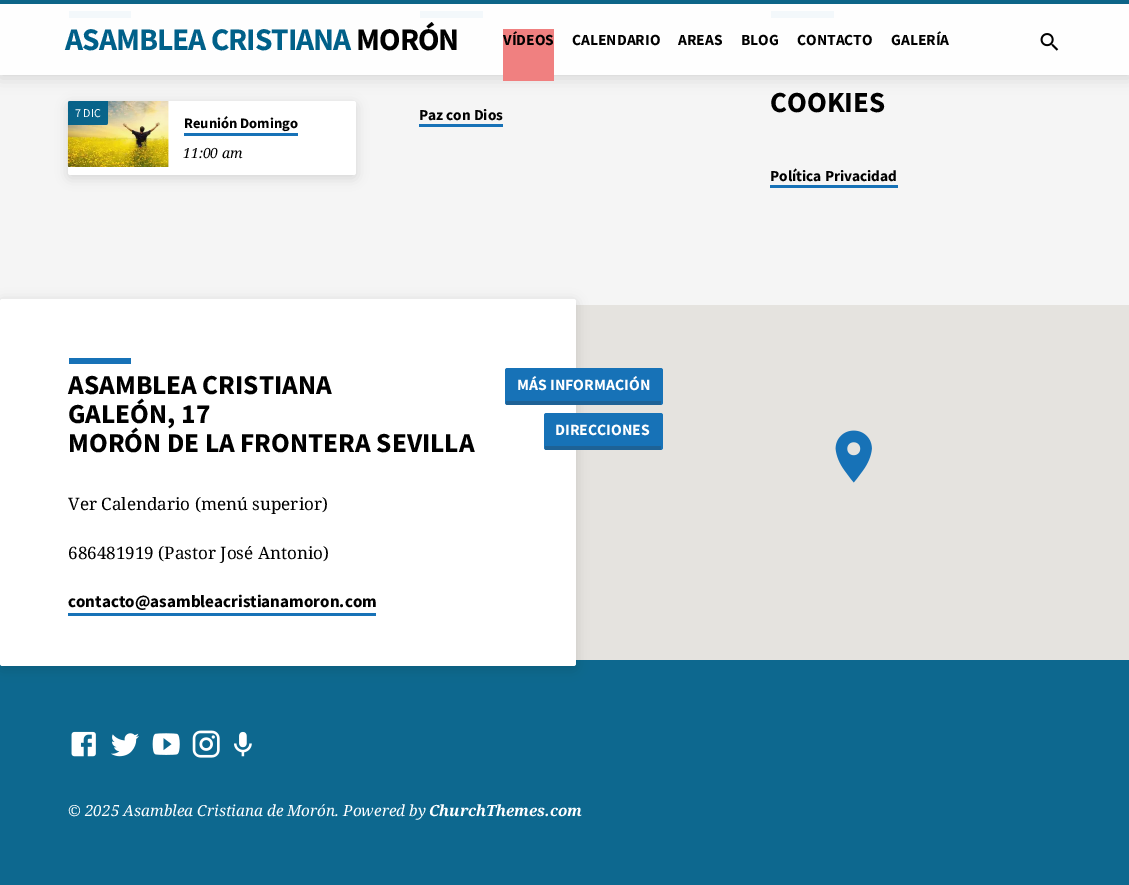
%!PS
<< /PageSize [1129 885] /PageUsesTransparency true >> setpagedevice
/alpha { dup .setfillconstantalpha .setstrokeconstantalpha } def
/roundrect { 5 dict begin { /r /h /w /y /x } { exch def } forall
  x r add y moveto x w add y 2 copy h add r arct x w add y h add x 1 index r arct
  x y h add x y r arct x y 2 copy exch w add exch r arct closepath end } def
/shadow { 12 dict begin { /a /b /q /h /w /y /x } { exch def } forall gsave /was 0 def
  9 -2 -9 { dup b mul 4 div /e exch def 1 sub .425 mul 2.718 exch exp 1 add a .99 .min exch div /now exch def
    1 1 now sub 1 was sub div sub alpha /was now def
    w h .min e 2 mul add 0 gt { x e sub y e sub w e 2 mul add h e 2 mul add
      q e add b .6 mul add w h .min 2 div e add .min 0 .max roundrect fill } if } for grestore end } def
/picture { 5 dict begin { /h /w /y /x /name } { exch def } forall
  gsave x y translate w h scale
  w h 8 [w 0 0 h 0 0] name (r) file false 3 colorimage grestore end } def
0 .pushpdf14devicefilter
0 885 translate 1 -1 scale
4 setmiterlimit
0.051 0.408 0.561 setrgbcolor
0 0 1129 885 rectfill
0.961 setgray
0 4 1129 301 rectfill
0.09 0.447 0.718 setrgbcolor
69 11 62 7 rectfill
420 11 63 7 rectfill
771 11 63 7 rectfill
0.95 alpha
1 setgray
0 4 1129 71 rectfill
1 alpha
0 setgray
68 104 288 74 2.5 6 0.12 shadow
1 setgray
68 101 288 74 2.5 roundrect fill
(img2.rgb) 67 101 102 66 picture
0.95 alpha
0 0.376 0.537 setrgbcolor
newpath 70.5 101 moveto 108 101 lineto 108 122.5 lineto 108 124 107 125 105.5 125 curveto 68 125 lineto 68 103.5 lineto 68 102 69 101 70.5 101 curveto closepath fill
gsave
newpath 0 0 moveto 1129 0 lineto 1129 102 lineto 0 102 lineto closepath 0 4 moveto 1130 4 lineto 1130 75 lineto 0 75 lineto closepath eoclip newpath
1 alpha
0 setgray
0 6 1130 72 0 7.5 0.14 shadow
grestore
/SourceSansPro-Bold [31.5 0 0 -31.5 0 0] selectfont
1 alpha
65 50 moveto -1 0 (ASAMBLEA CRISTIANA) ashow
0 setgray
356 50 moveto -1 0 (MORÓN) ashow
0.941 0.502 0.502 setrgbcolor
503 29 51 52 rectfill
/SourceSansPro-Bold [15.5 0 0 -15.5 0 0] selectfont
0 setgray
503 45 moveto (VÍDEOS) show
572 45 moveto (CALENDARIO) show
678 45 moveto (AREAS) show
741 45 moveto (BLOG) show
797 45 moveto (CONTACTO) show
891 45 moveto (GALERÍA) show
(img1.rgb) 1040 33 19 18 picture
/SourceSansPro-Regular [12 0 0 -12 0 0] selectfont
1 setgray
75 117 moveto (7 DIC) show
/SourceSansPro-Bold [14.5 0 0 -14.5 0 0] selectfont
0 setgray
184 128 moveto (Reunión Domingo) show
0.09 0.447 0.718 setrgbcolor
184 133 114 3 rectfill
/NotoSerif-Italic [14 0 0 -14 0 0] selectfont
0 setgray
183 158 moveto (11:00 am) show
/SourceSansPro-Bold [15.3 0 0 -15.3 0 0] selectfont
419 120 moveto (Paz con Dios) show
0.09 0.447 0.718 setrgbcolor
419 124 84 3 rectfill
/SourceSansPro-Bold [29 0 0 -29 0 0] selectfont
0 setgray
770 112 moveto (COOKIES) show
/SourceSansPro-Bold [15.3 0 0 -15.3 0 0] selectfont
770 181 moveto (Política Privacidad) show
0.09 0.447 0.718 setrgbcolor
770 185 128 3 rectfill
0.898 0.89 0.875 setrgbcolor
576 305 553 355 rectfill
0 setgray
0 301 576 368 2.5 6 0.12 shadow
1 setgray
0 299 576 367 2.5 roundrect fill
(img3.rgb) 835 430 37 53 picture
0.09 0.447 0.718 setrgbcolor
69 358 62 6 rectfill
/SourceSansPro-Bold [27.4 0 0 -27.4 0 0] selectfont
0 setgray
68 394 moveto (ASAMBLEA CRISTIANA) show
68 423 moveto (GALEÓN, 17) show
68 452 moveto (MORÓN DE LA FRONTERA SEVILLA) show
0.09 0.447 0.718 setrgbcolor
505 368 158 37 2.5 roundrect fill
0.25 alpha
0.196 setgray
506 401 155 4 rectfill
/SourceSansPro-Bold [15.75 0 0 -15.75 0 0] selectfont
1 alpha
1 setgray
517 390 moveto (MÁS INFORMACIÓN) show
0.09 0.447 0.718 setrgbcolor
544 413 119 37 2.5 roundrect fill
0.25 alpha
0.196 setgray
545 446 116 4 rectfill
1 alpha
1 setgray
555 435 moveto (DIRECCIONES) show
/NotoSerif-Regular [17.1 0 0 -17.1 0 0] selectfont
0 setgray
68 510 moveto (Ver Calendario \(menú superior\)) show
68 559 moveto (686481919 \(Pastor José Antonio\)) show
/SourceSansPro-Bold [17.1 0 0 -17.1 0 0] selectfont
68 607 moveto (contacto@asambleacristianamoron.com) show
0.09 0.447 0.718 setrgbcolor
68 613 308 3 rectfill
(img4.rgb) 71 731 25 26 picture
(img5.rgb) 111 733 28 24 picture
(img6.rgb) 152 733 28 22 picture
(img7.rgb) 192 730 28 28 picture
(img8.rgb) 234 731 18 26 picture
/NotoSerif-Italic [15.3 0 0 -15.3 0 0] selectfont
1 setgray
68 816 moveto (© 2025 Asamblea Cristiana de Morón. Powered by) show
/NotoSerif-BoldItalic [15.3 0 0 -15.3 0 0] selectfont
429 816 moveto (ChurchThemes.com) show
.poppdf14devicefilter showpage
